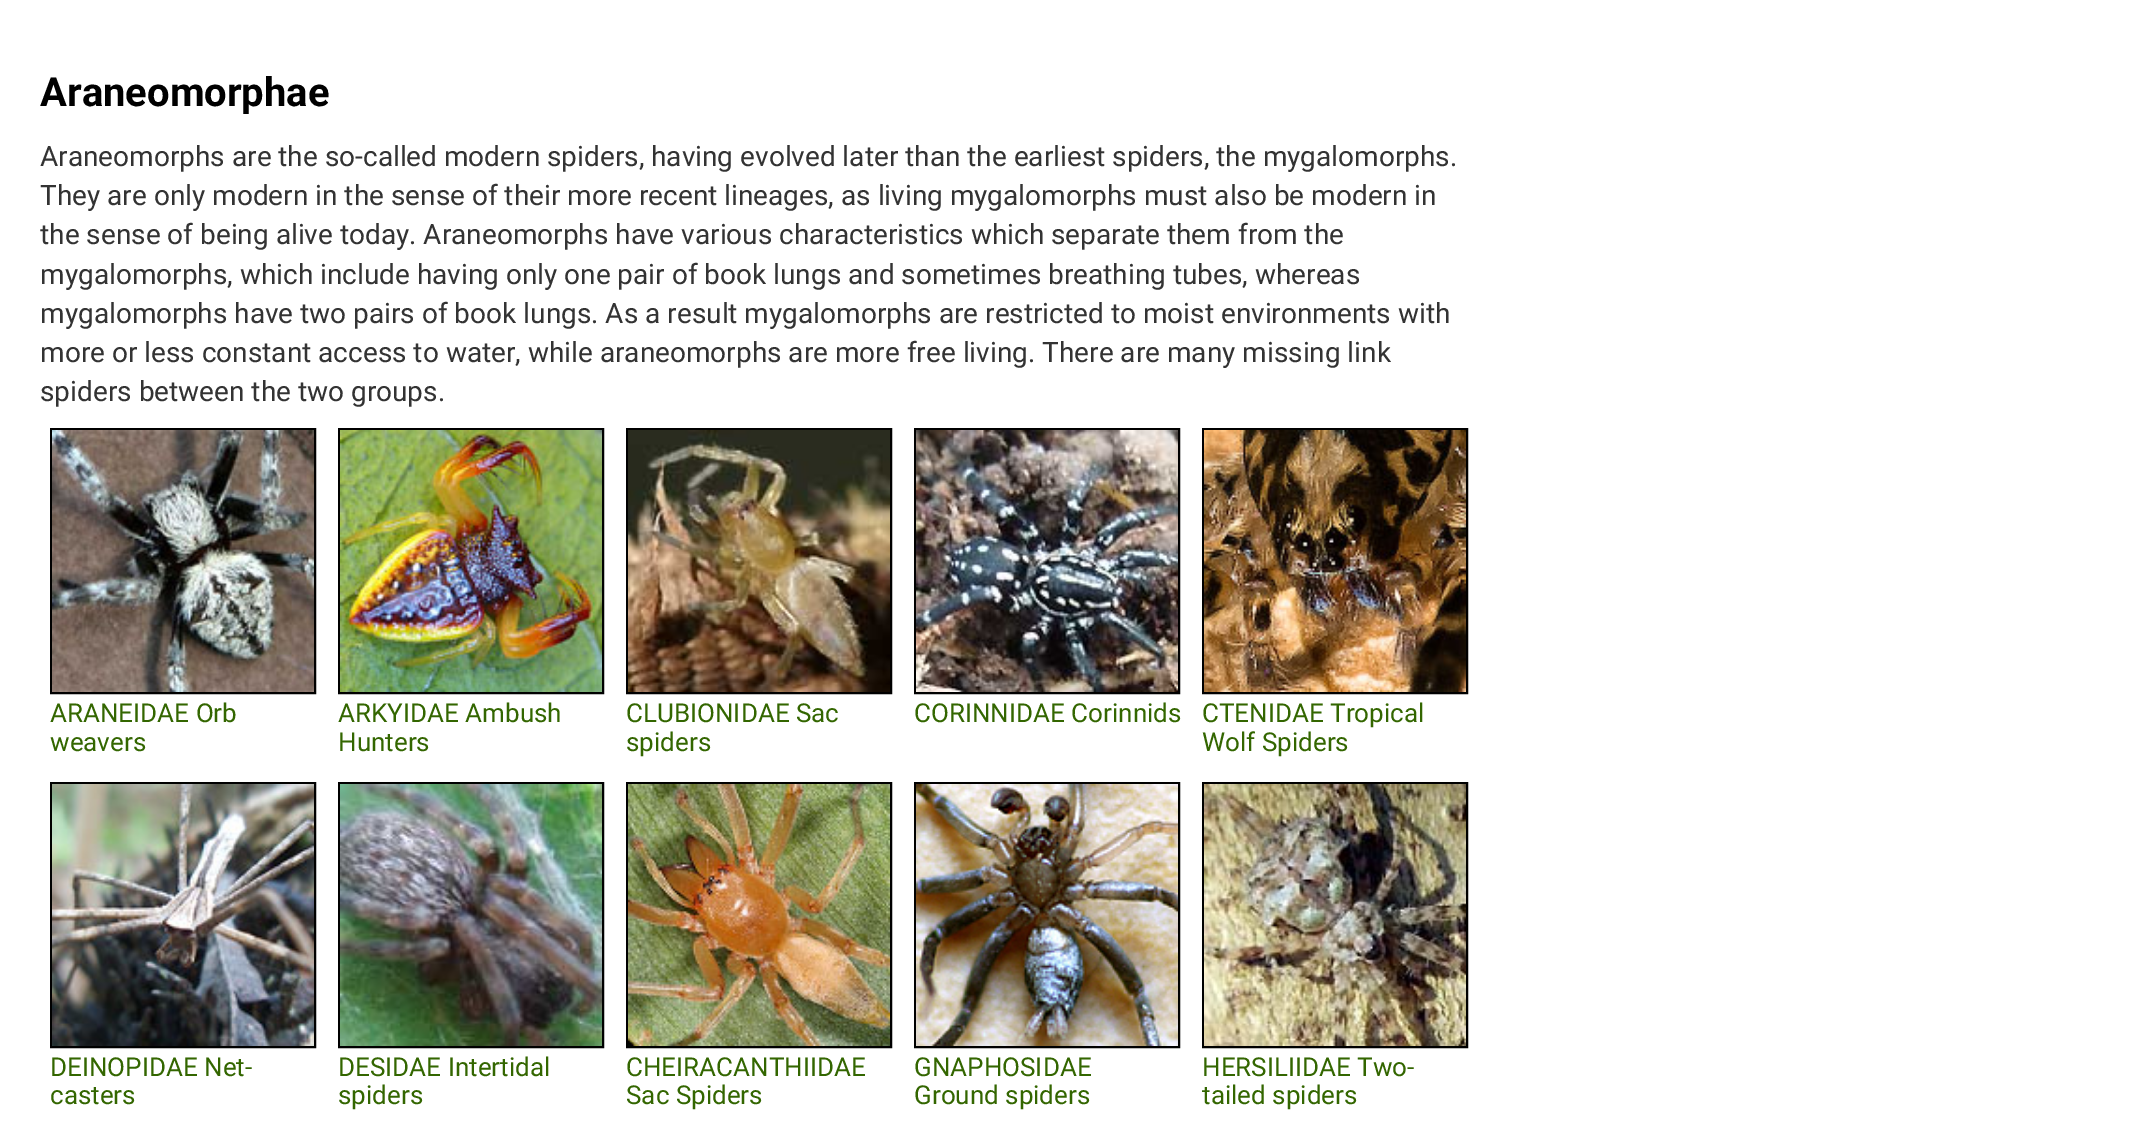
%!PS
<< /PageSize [2152 1134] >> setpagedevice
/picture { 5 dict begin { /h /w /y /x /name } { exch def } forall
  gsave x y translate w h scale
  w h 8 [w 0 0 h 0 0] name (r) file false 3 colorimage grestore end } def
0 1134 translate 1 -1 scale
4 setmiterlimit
1 setgray
0 0 2152 1134 rectfill
/Roboto-Bold [40 0 0 -40 0 0] selectfont
0 setgray
40 106 moveto (Araneomorphae) show
/Roboto-Regular [28 0 0 -28 0 0] selectfont
0.2 setgray
40 166 moveto (Araneomorphs are the so-called modern spiders, having evolved later than the earliest spiders, the mygalomorphs.) show
40 205 moveto (They are only modern in the sense of their more recent lineages, as living mygalomorphs must also be modern in) show
40 244 moveto (the sense of being alive today. Araneomorphs have various characteristics which separate them from the) show
40 284 moveto (mygalomorphs, which include having only one pair of book lungs and sometimes breathing tubes, whereas) show
40 323 moveto (mygalomorphs have two pairs of book lungs. As a result mygalomorphs are restricted to moist environments with) show
40 362 moveto (more or less constant access to water, while araneomorphs are more free living. There are many missing link) show
40 401 moveto (spiders between the two groups.) show
0 setgray
2 setlinewidth
51 429 264 264 rectstroke
(img1.rgb) 52 430 262 262 picture
/Roboto-Regular [26 0 0 -26 0 0] selectfont
0.2 0.4 0 setrgbcolor
50 722 moveto (ARANEIDAE Orb) show
50 751 moveto (weavers) show
0 setgray
339 429 264 264 rectstroke
(img2.rgb) 340 430 262 262 picture
0.2 0.4 0 setrgbcolor
338 722 moveto (ARKYIDAE Ambush) show
338 751 moveto (Hunters) show
0 setgray
627 429 264 264 rectstroke
(img3.rgb) 628 430 262 262 picture
0.2 0.4 0 setrgbcolor
626 722 moveto (CLUBIONIDAE Sac) show
626 751 moveto (spiders) show
0 setgray
915 429 264 264 rectstroke
(img4.rgb) 916 430 262 262 picture
0.2 0.4 0 setrgbcolor
914 722 moveto (CORINNIDAE Corinnids) show
0 setgray
1203 429 264 264 rectstroke
(img5.rgb) 1204 430 262 262 picture
0.2 0.4 0 setrgbcolor
1202 722 moveto (CTENIDAE Tropical) show
1202 751 moveto (Wolf Spiders) show
0 setgray
51 783 264 264 rectstroke
(img6.rgb) 52 784 262 262 picture
0.2 0.4 0 setrgbcolor
50 1076 moveto (DEINOPIDAE Net-) show
50 1104 moveto (casters) show
0 setgray
339 783 264 264 rectstroke
(img7.rgb) 340 784 262 262 picture
0.2 0.4 0 setrgbcolor
338 1076 moveto (DESIDAE Intertidal) show
338 1104 moveto (spiders) show
0 setgray
627 783 264 264 rectstroke
(img8.rgb) 628 784 262 262 picture
0.2 0.4 0 setrgbcolor
626 1076 moveto (CHEIRACANTHIIDAE) show
626 1104 moveto (Sac Spiders) show
0 setgray
915 783 264 264 rectstroke
(img9.rgb) 916 784 262 262 picture
0.2 0.4 0 setrgbcolor
914 1076 moveto (GNAPHOSIDAE) show
914 1104 moveto (Ground spiders) show
0 setgray
1203 783 264 264 rectstroke
(img10.rgb) 1204 784 262 262 picture
0.2 0.4 0 setrgbcolor
1202 1076 moveto (HERSILIIDAE Two-) show
1202 1104 moveto (tailed spiders) show
showpage
